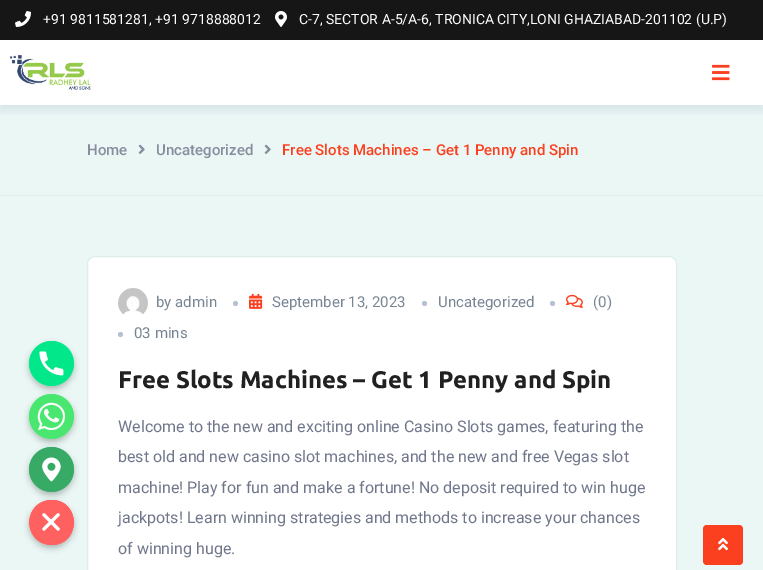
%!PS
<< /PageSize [763 570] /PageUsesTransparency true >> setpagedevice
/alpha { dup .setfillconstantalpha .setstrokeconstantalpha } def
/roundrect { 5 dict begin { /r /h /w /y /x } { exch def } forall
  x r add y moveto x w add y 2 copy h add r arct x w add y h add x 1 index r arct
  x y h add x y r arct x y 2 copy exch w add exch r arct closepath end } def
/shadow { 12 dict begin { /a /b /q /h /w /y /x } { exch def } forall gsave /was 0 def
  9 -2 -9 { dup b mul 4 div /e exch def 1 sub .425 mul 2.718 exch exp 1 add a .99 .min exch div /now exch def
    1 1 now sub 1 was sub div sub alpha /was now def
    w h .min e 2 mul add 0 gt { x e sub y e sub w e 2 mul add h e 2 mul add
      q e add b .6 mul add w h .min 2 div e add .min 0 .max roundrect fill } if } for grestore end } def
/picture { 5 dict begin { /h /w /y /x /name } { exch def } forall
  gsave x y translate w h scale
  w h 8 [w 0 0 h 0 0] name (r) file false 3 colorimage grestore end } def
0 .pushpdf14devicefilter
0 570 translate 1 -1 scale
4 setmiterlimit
1 setgray
0 0 763 570 rectfill
0.086 setgray
0 0 763 40 rectfill
(img1.rgb) 15 11 16 16 picture
/Roboto-Regular [14 0 0 -14 0 0] selectfont
1 setgray
43 24 moveto (+91 9811581281, +91 9718888012) show
(img2.rgb) 275 11 12 16 picture
299 24 moveto (C-7, SECTOR A-5/A-6, TRONICA CITY,LONI GHAZIABAD-201102 \(U.P\)) show
0.918 0.969 0.957 setrgbcolor
0 105 763 90 rectfill
gsave
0 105 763 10 rectclip
0.341 0.396 0.502 setrgbcolor
0 45 763 65 0 5 0.12 shadow
grestore
(img3.rgb) 10 55 81 35 picture
(img4.rgb) 712 64 18 17 picture
0.863 0.933 0.918 setrgbcolor
0 195 763 1 rectfill
/Roboto-Medium [15 0 0 -15 0 0] selectfont
0.529 0.549 0.624 setrgbcolor
87 155 moveto (Home) show
(img5.rgb) 138 144 7 10 picture
156 155 moveto (Uncategorized) show
(img5.rgb) 264 144 7 10 picture
0.984 0.251 0.122 setrgbcolor
282 155 moveto (Free Slots Machines – Get 1 Penny and Spin) show
0.918 0.969 0.957 setrgbcolor
0 196 763 374 rectfill
1 setgray
87.5 256.5 589 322 7.5 roundrect gsave fill grestore
0.863 0.933 0.918 setrgbcolor
stroke
(img6.rgb) 118 288 30 28 picture
/Roboto-Regular [15 0 0 -15 0 0] selectfont
0.471 0.522 0.576 setrgbcolor
156 307 moveto (by admin) show
0.718 0.753 0.835 setrgbcolor
newpath 235.5 303.5 2.5 0 360 arc closepath fill
(img7.rgb) 249 293 14 16 picture
0.471 0.522 0.576 setrgbcolor
272 307 moveto (September 13, 2023) show
0.718 0.753 0.835 setrgbcolor
newpath 424.5 303.5 2.5 0 360 arc closepath fill
0.471 0.522 0.576 setrgbcolor
438 307 moveto (Uncategorized) show
0.718 0.753 0.835 setrgbcolor
newpath 552.5 303.5 2.5 0 360 arc closepath fill
(img8.rgb) 566 294 17 14 picture
0.471 0.522 0.576 setrgbcolor
593 307 moveto (\(0\)) show
0.718 0.753 0.835 setrgbcolor
newpath 120.5 334.5 2.5 0 360 arc closepath fill
0.471 0.522 0.576 setrgbcolor
134 338 moveto (03 mins) show
/Ubuntu-Bold [24 0 0 -24 0 0] selectfont
0.129 setgray
118 388 moveto (Free Slots Machines – Get 1 Penny and Spin) show
/Roboto-Regular [16 0 0 -16 0 0] selectfont
0.439 0.467 0.545 setrgbcolor
118 432 moveto (Welcome to the new and exciting online Casino Slots games, featuring the) show
118 462 moveto (best old and new casino slot machines, and the new and free Vegas slot) show
118 493 moveto (machine! Play for fun and make a fortune! No deposit required to win huge) show
118 523 moveto (jackpots! Learn winning strategies and methods to increase your chances) show
118 554 moveto (of winning huge.) show
0 setgray
29 344 45 45 22.5 3 0.25 shadow
(img9.rgb) 29 341 45 45 picture
29 397 45 45 22.5 3 0.25 shadow
(img10.rgb) 29 394 45 45 picture
29 450 45 45 22.5 3 0.25 shadow
(img11.rgb) 29 447 45 45 picture
29 503 45 45 22.5 3 0.25 shadow
1 0.376 0.376 setrgbcolor
newpath 52 545 moveto 22 545 22 500 52 500 curveto 81 500 81 545 52 545 curveto closepath fill
(img12.rgb) 29 500 45 45 picture
0.984 0.251 0.122 setrgbcolor
703 525 40 40 4 roundrect fill
(img13.rgb) 718 537 10 14 picture
.poppdf14devicefilter showpage
